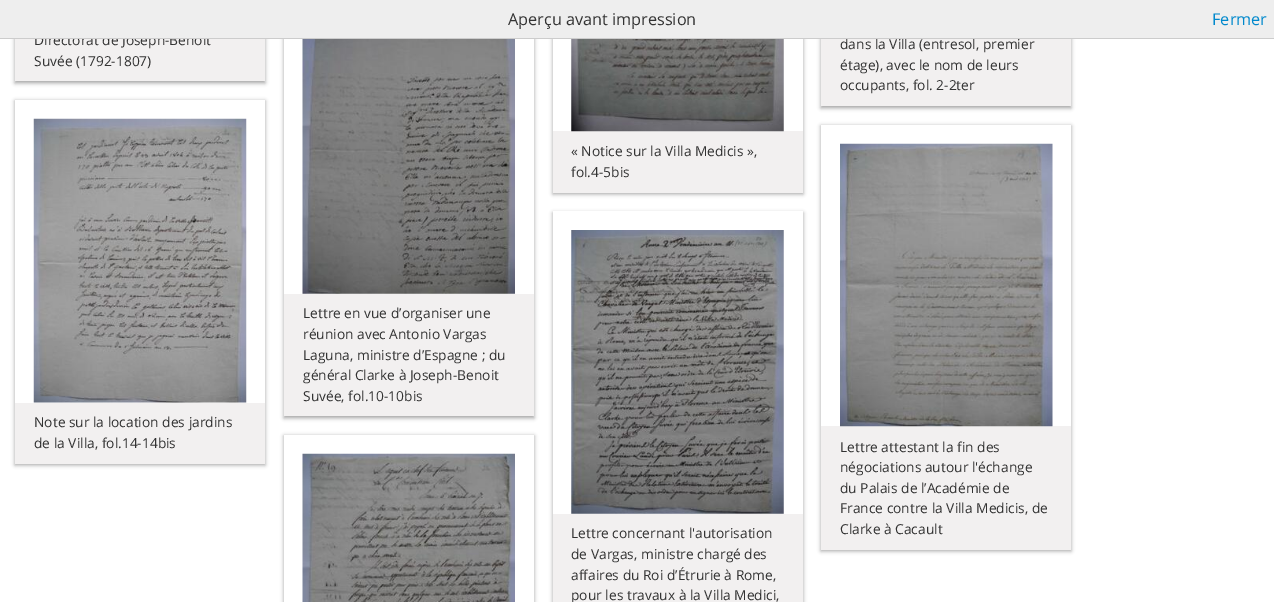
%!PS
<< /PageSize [1274 602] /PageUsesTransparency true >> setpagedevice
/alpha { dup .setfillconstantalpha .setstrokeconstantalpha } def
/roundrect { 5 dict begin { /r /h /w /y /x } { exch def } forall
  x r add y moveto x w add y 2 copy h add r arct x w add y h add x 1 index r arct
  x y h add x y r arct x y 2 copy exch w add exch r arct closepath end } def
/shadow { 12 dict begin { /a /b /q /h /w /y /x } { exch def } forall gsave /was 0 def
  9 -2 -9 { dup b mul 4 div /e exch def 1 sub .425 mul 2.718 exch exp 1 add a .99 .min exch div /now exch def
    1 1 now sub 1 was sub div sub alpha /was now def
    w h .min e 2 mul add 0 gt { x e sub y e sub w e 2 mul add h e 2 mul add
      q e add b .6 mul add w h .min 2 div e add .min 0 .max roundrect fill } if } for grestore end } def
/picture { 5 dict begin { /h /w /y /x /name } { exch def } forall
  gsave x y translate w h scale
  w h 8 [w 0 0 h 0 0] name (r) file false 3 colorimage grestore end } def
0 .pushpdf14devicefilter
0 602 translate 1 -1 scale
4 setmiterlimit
1 setgray
0 0 1274 602 rectfill
0.098 setgray
15 -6 250 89 0 2 0.4 shadow
0.949 0.941 0.941 setrgbcolor
15 39 250 42 rectfill
/OpenSans-Regular [13.75 0 0 -13.75 0 0] selectfont
0.2 setgray
34 45 moveto (Directorat de Joseph-Benoît) show
0.098 setgray
821 -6 250 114 0 2 0.4 shadow
553 -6 250 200 0 2 0.4 shadow
284 -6 250 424 0 2 0.4 shadow
0.933 setgray
0 0 1274 38 rectfill
0.949 0.941 0.941 setrgbcolor
821 39 250 67 rectfill
0.2 setgray
840 49 moveto (dans la Villa \(entresol, premier) show
0.8 setgray
0 38 1274 1 rectfill
/OpenSans-Regular [16.25 0 0 -16.25 0 0] selectfont
0.2 setgray
508 25 moveto (Aperçu avant impression) show
0 0.533 0.8 setrgbcolor
1212 25 moveto (Fermer) show
/OpenSans-Regular [13.75 0 0 -13.75 0 0] selectfont
0.2 setgray
34 66 moveto (Suvée \(1792-1807\)) show
840 70 moveto (étage\), avec le nom de leurs) show
840 90 moveto (occupants, fol. 2-2ter) show
1 setgray
553 39 250 92 rectfill
0.949 0.941 0.941 setrgbcolor
553 131 250 62 rectfill
(img1.rgb) 571 39 213 93 picture
0.2 setgray
571 156 moveto (« Notice sur la Villa Medicis »,) show
571 177 moveto (fol.4-5bis) show
1 setgray
284 39 250 255 rectfill
(img2.rgb) 302 39 213 255 picture
0.949 0.941 0.941 setrgbcolor
284 294 250 122 rectfill
0.2 setgray
303 318 moveto (Lettre en vue d’organiser une) show
303 339 moveto (réunion avec Antonio Vargas) show
303 360 moveto (Laguna, ministre d’Espagne ; du) show
303 380 moveto (général Clarke à Joseph-Benoit) show
303 401 moveto (Suvée, fol.10-10bis) show
0.098 setgray
15 101 250 364 0 2 0.4 shadow
1 setgray
15 100 250 303 rectfill
(img3.rgb) 33 118 214 285 picture
0.949 0.941 0.941 setrgbcolor
15 403 250 61 rectfill
0.2 setgray
34 427 moveto (Note sur la location des jardins) show
34 448 moveto (de la Villa, fol.14-14bis) show
0.098 setgray
284 436 250 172 0 2 0.4 shadow
1 setgray
284 435 250 167 rectfill
(img4.rgb) 302 453 213 149 picture
0.098 setgray
821 126 250 425 0 2 0.4 shadow
1 setgray
821 125 250 301 rectfill
0.949 0.941 0.941 setrgbcolor
821 426 250 124 rectfill
(img5.rgb) 840 143 213 284 picture
0.2 setgray
840 452 moveto (Lettre attestant la fin des) show
840 472 moveto (négociations autour l'échange) show
840 493 moveto (du Palais de l’Académie de) show
840 513 moveto (France contre la Villa Medicis, de) show
840 534 moveto (Clarke à Cacault) show
0.098 setgray
553 213 250 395 0 2 0.4 shadow
1 setgray
553 211 250 303 rectfill
(img6.rgb) 571 230 213 284 picture
0.949 0.941 0.941 setrgbcolor
553 514 250 88 rectfill
0.2 setgray
571 538 moveto (Lettre concernant l'autorisation) show
571 559 moveto (de Vargas, ministre chargé des) show
571 580 moveto (affaires du Roi d’Étrurie à Rome,) show
571 600 moveto (pour les travaux à la Villa Medici,) show
.poppdf14devicefilter showpage
